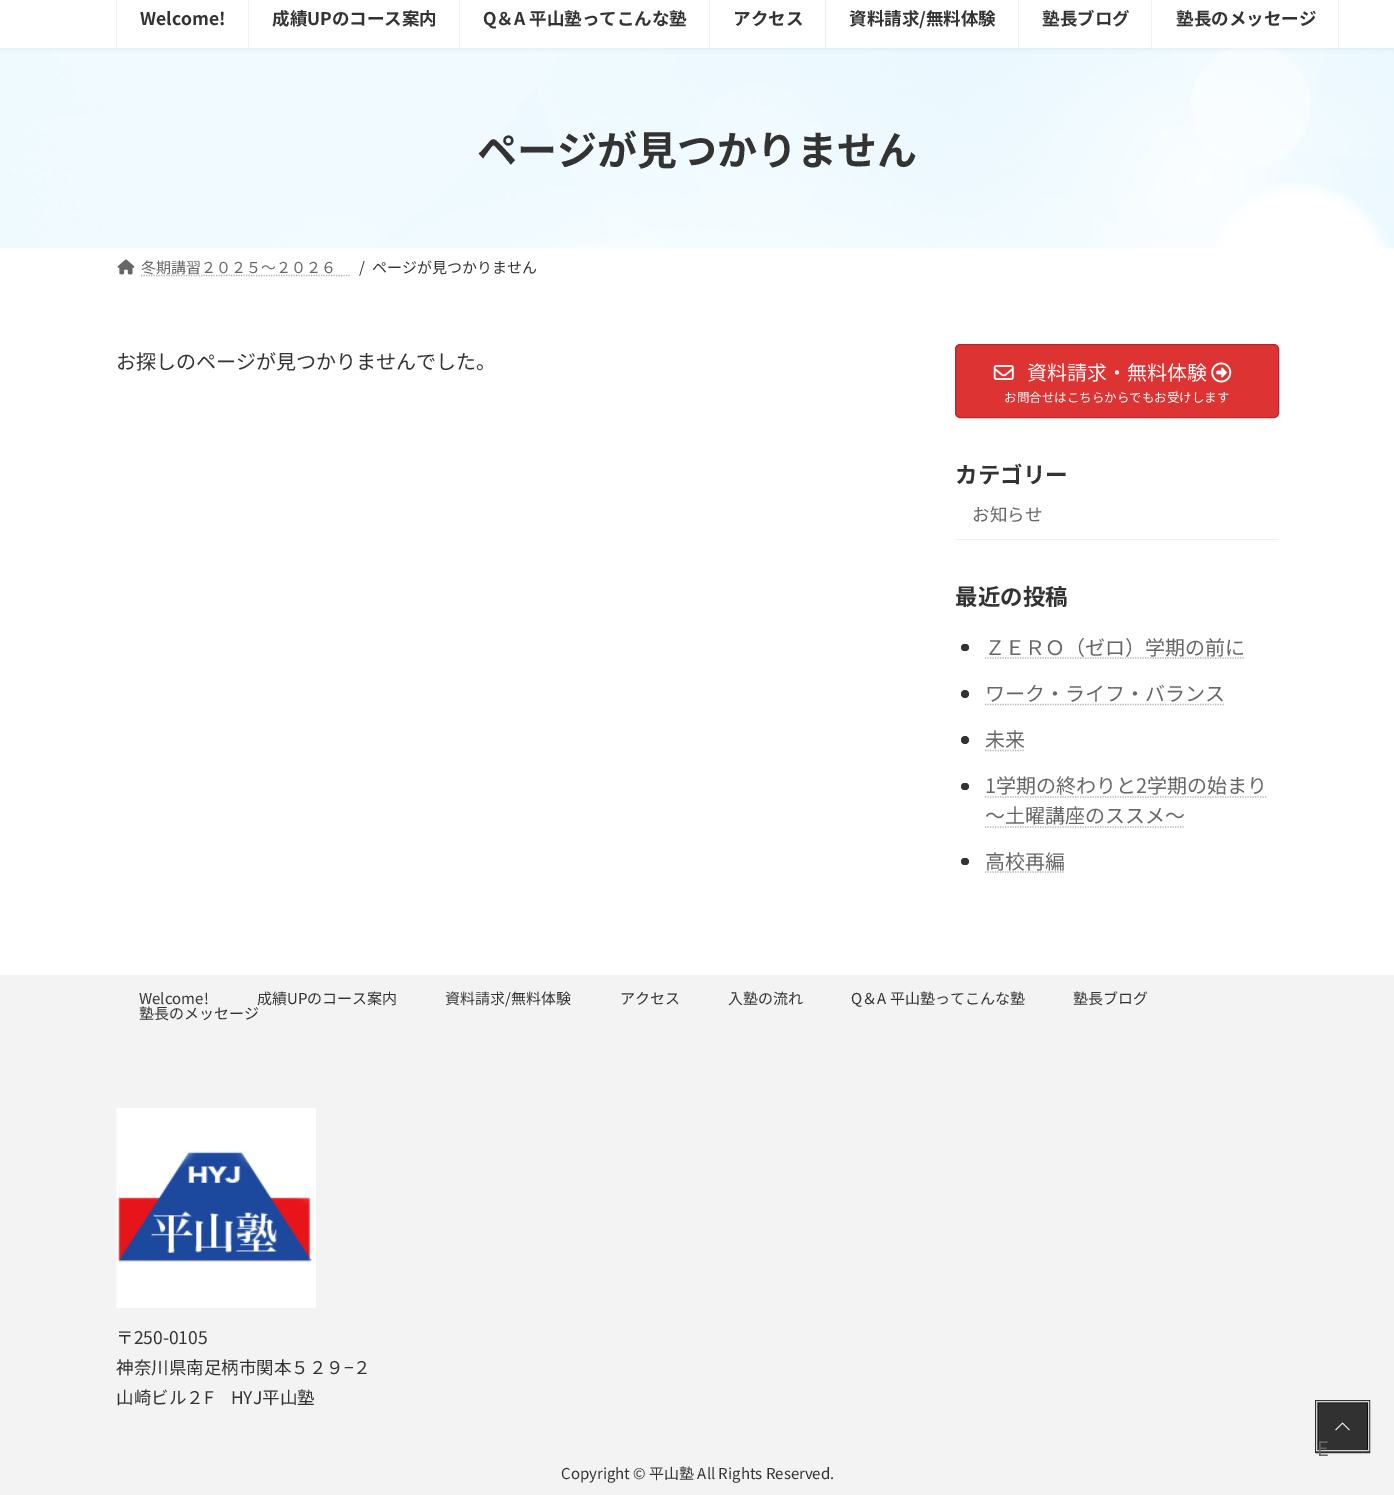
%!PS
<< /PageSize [1394 1495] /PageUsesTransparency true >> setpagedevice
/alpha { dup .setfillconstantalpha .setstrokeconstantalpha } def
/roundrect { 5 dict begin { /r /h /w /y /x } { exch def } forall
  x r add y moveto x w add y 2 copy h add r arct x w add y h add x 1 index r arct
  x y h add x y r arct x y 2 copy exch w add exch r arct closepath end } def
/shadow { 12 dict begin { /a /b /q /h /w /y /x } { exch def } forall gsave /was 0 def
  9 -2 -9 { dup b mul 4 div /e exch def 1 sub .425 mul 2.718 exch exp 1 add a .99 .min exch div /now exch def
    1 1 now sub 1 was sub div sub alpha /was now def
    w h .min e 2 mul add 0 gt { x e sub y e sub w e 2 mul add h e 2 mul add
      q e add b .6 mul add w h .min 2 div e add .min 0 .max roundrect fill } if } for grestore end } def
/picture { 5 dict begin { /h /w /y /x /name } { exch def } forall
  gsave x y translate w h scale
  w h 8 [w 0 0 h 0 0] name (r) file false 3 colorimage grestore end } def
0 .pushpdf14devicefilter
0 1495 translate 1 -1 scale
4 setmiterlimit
1 setgray
0 0 1394 1495 rectfill
(img1.rgb) 0 48 1394 200 picture
0 setgray
0 -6 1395 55 0 2 0.05 shadow
1 setgray
0 0 1394 48 rectfill
0.941 setgray
248 0 1 48 rectfill
116 0 1 48 rectfill
/NotoSansJP-Bold [17.5 0 0 -17.5 0 0] selectfont
0.2 setgray
140 25 moveto (Welcome!) show
0.941 setgray
459 0 1 48 rectfill
0.2 setgray
272 25 moveto (成績UPのコース案内) show
0.941 setgray
709 0 1 48 rectfill
0.2 setgray
483 25 moveto (Q＆A 平山塾ってこんな塾) show
0.941 setgray
825 0 1 48 rectfill
0.2 setgray
733 25 moveto (アクセス) show
0.941 setgray
1018 0 1 48 rectfill
0.2 setgray
849 25 moveto (資料請求/無料体験) show
0.941 setgray
1151 0 1 48 rectfill
0.2 setgray
1042 25 moveto (塾長ブログ) show
0.941 setgray
1338 0 1 48 rectfill
0.2 setgray
1176 25 moveto (塾長のメッセージ) show
/NotoSansJP-Bold [40 0 0 -40 0 0] selectfont
477 165 moveto (ページが見つかりません) show
(img2.rgb) 117 259 18 16 picture
0.702 setgray
1.2 setlinewidth
[1.25 1.25] 0 setdash
newpath 141 275.5 moveto 351 275.5 lineto stroke
/NotoSansJP-Regular [15 0 0 -15 0 0] selectfont
0.4 setgray
141 273 moveto (冬期講習２０２５～２０２６) show
0.2 setgray
359 273 moveto (/) show
372 273 moveto (ページが見つかりません) show
/NotoSansJP-Regular [20 0 0 -20 0 0] selectfont
116 369 moveto (お探しのページが見つかりませんでした。) show
0.867 0.2 0.2 setrgbcolor
955.5 344.5 323 73 4.5 roundrect gsave fill grestore
0.694 0.161 0.161 setrgbcolor
1 setlinewidth
[] 0 setdash
stroke
(img3.rgb) 993 365 21 15 picture
1 setgray
1027 380 moveto (資料請求・無料体験) show
(img4.rgb) 1211 362 21 21 picture
/NotoSansJP-Regular [12.5 0 0 -12.5 0 0] selectfont
1004 402 moveto (お問合せはこちらからでもお受けします) show
/NotoSansJP-Bold [22.5 0 0 -22.5 0 0] selectfont
0.2 setgray
955 483 moveto (カテゴリー) show
0.941 setgray
955 539 324 1 rectfill
/NotoSansJP-Regular [17.5 0 0 -17.5 0 0] selectfont
0.4 setgray
972 521 moveto (お知らせ) show
/NotoSansJP-Bold [22.5 0 0 -22.5 0 0] selectfont
0.2 setgray
955 605 moveto (最近の投稿) show
961 644 8 7 3.5 roundrect fill
/NotoSansJP-Regular [20 0 0 -20 0 0] selectfont
0.4 setgray
985 655 moveto (ＺＥＲＯ（ゼロ）学期の前に) show
0.702 setgray
1.2 setlinewidth
[1.25 1.25] 0 setdash
newpath 985 658 moveto 1245 658 lineto stroke
0.2 setgray
newpath 965 694 4 0 360 arc closepath fill
0.4 setgray
985 701 moveto (ワーク・ライフ・バランス) show
0.702 setgray
newpath 985 704.5 moveto 1225 704.5 lineto stroke
0.2 setgray
newpath 965 740 4 0 360 arc closepath fill
0.4 setgray
985 747 moveto (未来) show
0.702 setgray
newpath 985 750.5 moveto 1025 750.5 lineto stroke
0.2 setgray
961 783 8 7 3.5 roundrect fill
0.4 setgray
985 793 moveto (1学期の終わりと2学期の始まり) show
0.702 setgray
newpath 985 797 moveto 1267 797 lineto stroke
0.4 setgray
985 823 moveto (～土曜講座のススメ～) show
0.702 setgray
newpath 985 827 moveto 1185 827 lineto stroke
0.2 setgray
961 858 8 7 3.5 roundrect fill
0.4 setgray
985 869 moveto (高校再編) show
0.702 setgray
newpath 985 872 moveto 1065 872 lineto stroke
0.953 setgray
0 975 1394 520 rectfill
/NotoSansJP-Regular [15 0 0 -15 0 0] selectfont
0.2 setgray
139 1004 moveto (Welcome!) show
257 1004 moveto (成績UPのコース案内) show
445 1004 moveto (資料請求/無料体験) show
620 1004 moveto (アクセス) show
728 1004 moveto (入塾の流れ) show
851 1004 moveto (Q＆A 平山塾ってこんな塾) show
1073 1004 moveto (塾長ブログ) show
139 1019 moveto (塾長のメッセージ) show
(img5.rgb) 116 1108 200 200 picture
/NotoSansJP-Regular [17.5 0 0 -17.5 0 0] selectfont
116 1344 moveto (〒250-0105) show
116 1374 moveto (神奈川県南足柄市関本５２９−２) show
116 1404 moveto (山崎ビル２F　HYJ平山塾) show
/NotoSansJP-Regular [15 0 0 -15 0 0] selectfont
561 1479 moveto (Copyright © 平山塾 All Rights Reserved.) show
0.192 setgray
3 setlinewidth
[] 0 setdash
1316.5 1401.5 52 50 rectstroke
0.839 setgray
1 setlinewidth
1316.5 1401.5 52 49 rectstroke
0.8 alpha
0 setgray
1318 1403 50 47 rectfill
1 alpha
(img6.rgb) 1335 1422 15 9 picture
/NotoSansJP-Regular [20 0 0 -20 0 0] selectfont
0.4 setgray
1317 1456 moveto (E) show
.poppdf14devicefilter showpage
